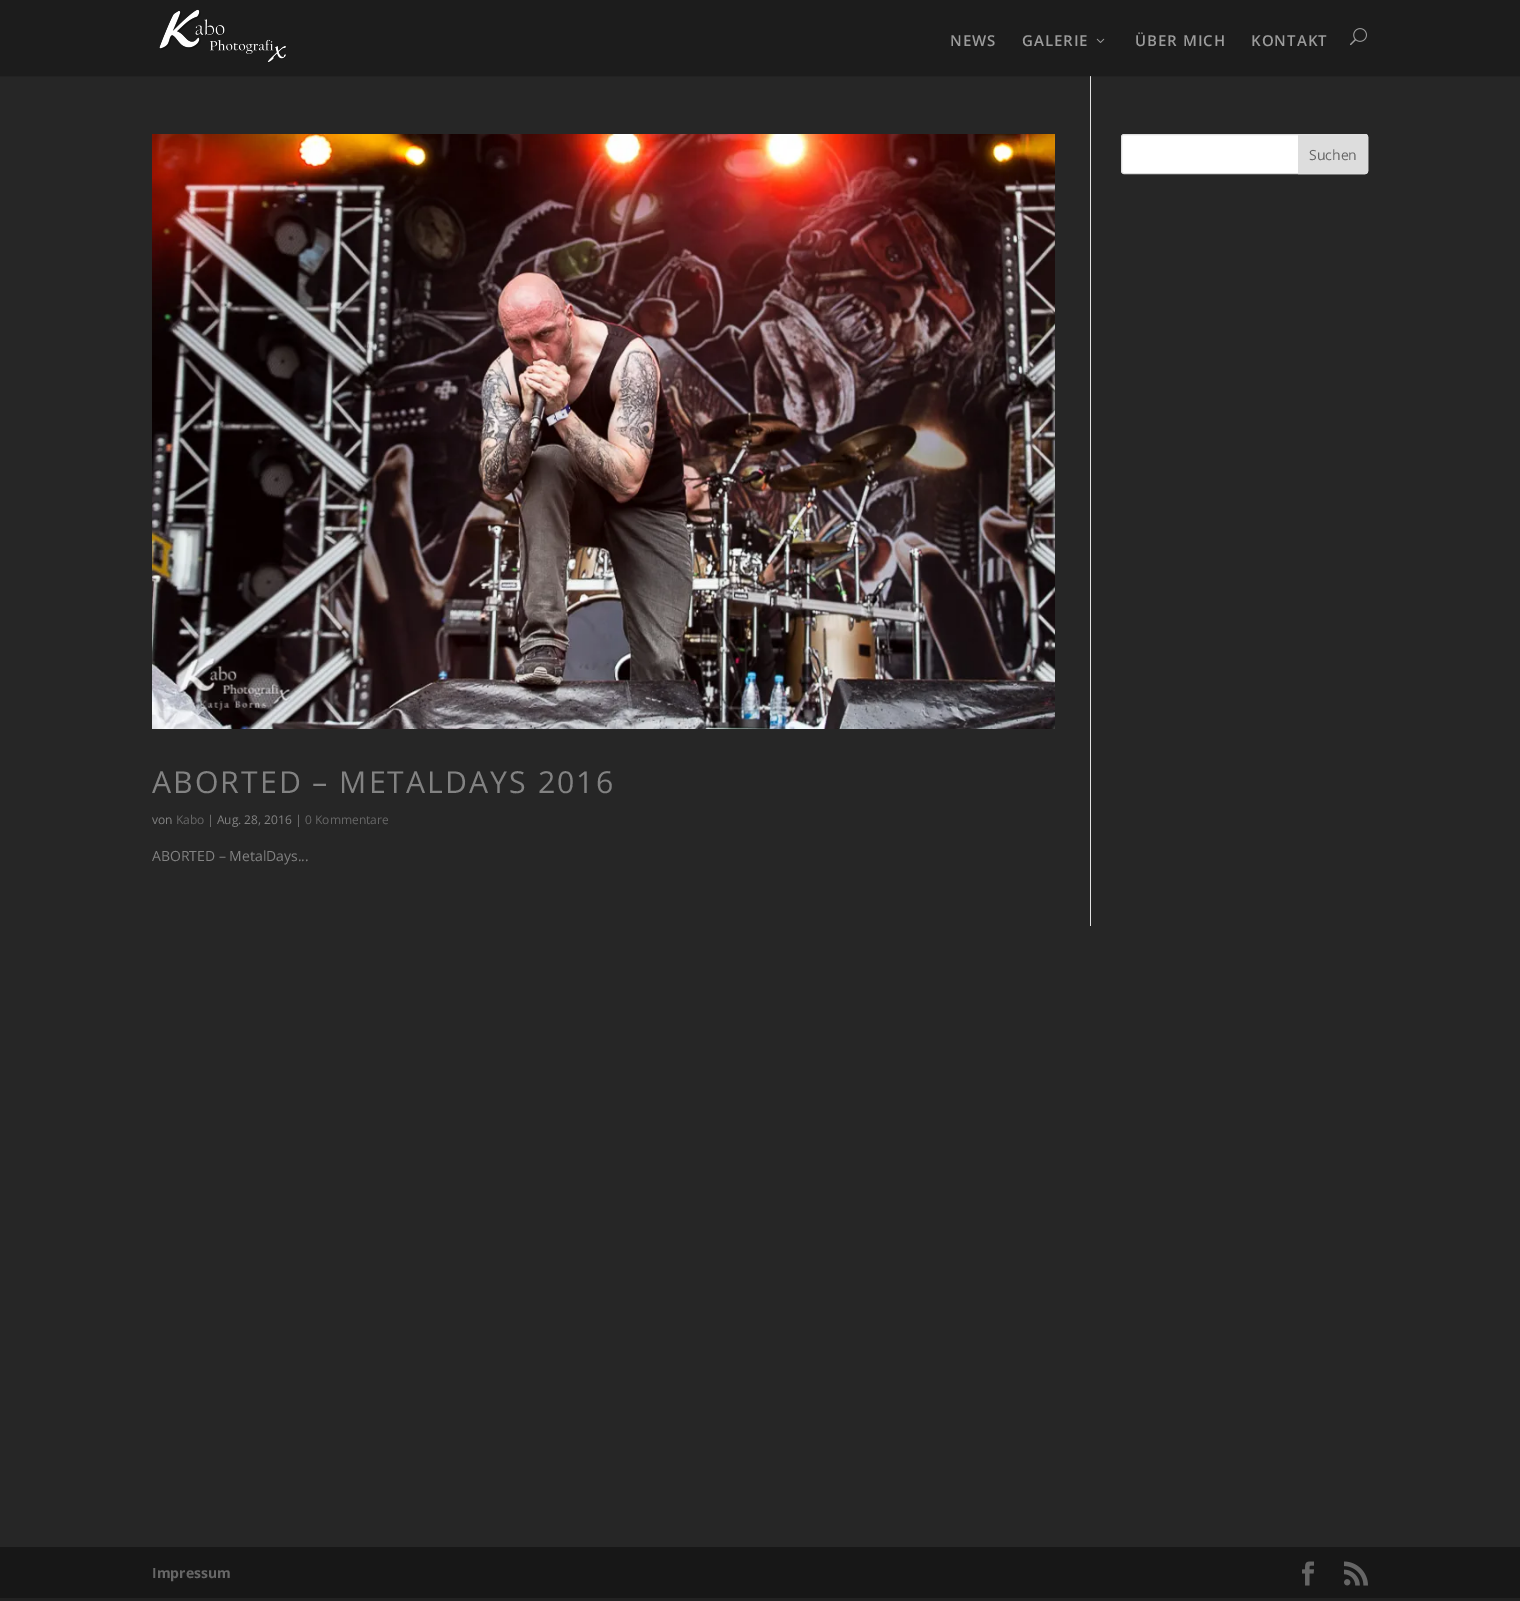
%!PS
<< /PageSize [1520 1601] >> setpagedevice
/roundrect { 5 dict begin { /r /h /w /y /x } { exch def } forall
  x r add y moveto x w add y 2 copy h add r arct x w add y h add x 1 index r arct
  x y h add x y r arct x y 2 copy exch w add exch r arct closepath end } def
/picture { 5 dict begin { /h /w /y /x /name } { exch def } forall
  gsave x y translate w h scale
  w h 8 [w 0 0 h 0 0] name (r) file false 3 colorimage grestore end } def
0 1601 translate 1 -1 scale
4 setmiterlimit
0.149 setgray
0 0 1520 1601 rectfill
0.133 setgray
0 76 1520 1 rectfill
0.11 setgray
0 0 1520 76 rectfill
(img1.rgb) 159 9 128 54 picture
/OpenSans-SemiBold [15 0 0 -15 0 0] selectfont
0.612 setgray
950 46 moveto 1 0 (NEWS) ashow
1022 46 moveto 1 0 (GALERIE) ashow
(img2.rgb) 1096 38 9 5 picture
1135 46 moveto 1 0 (ÜBER MICH) ashow
1251 46 moveto 1 0 (KONTAKT) ashow
(img3.rgb) 1350 28 17 18 picture
0.886 setgray
1090 76 1 850 rectfill
0.796 setgray
1090 76 1 1 rectfill
1 setgray
1121.5 134.5 246 39 2.5 roundrect gsave fill grestore
0.867 setgray
stroke
newpath 1298.5 134.5 moveto 1365 134.5 lineto 1366.5 134.5 1367.5 135.5 1367.5 137 curveto 1367.5 171 lineto 1367.5 172.5 1366.5 173.5 1365 173.5 curveto 1298.5 173.5 lineto closepath gsave fill grestore
stroke
/OpenSans-Regular [14 0 0 -14 0 0] selectfont
0.4 setgray
1309 160 moveto (Suchen) show
(img4.rgb) 152 134 903 595 picture
/OpenSans-Regular [30.3 0 0 -30.3 0 0] selectfont
0.51 setgray
152 793 moveto 2 0 (ABORTED – METALDAYS 2016) ashow
/OpenSans-Regular [12 0 0 -12 0 0] selectfont
152 824 moveto (von) show
0.4 setgray
176 824 moveto (Kabo) show
0.51 setgray
207 824 moveto (| Aug. 28, 2016 |) show
0.4 setgray
305 824 moveto (0 Kommentare) show
/OpenSans-Regular [14 0 0 -14 0 0] selectfont
0.51 setgray
152 861 moveto (ABORTED – MetalDays...) show
0.133 setgray
0 1598 1520 3 rectfill
0.09 setgray
0 1547 1520 51 rectfill
/OpenSans-Bold [14 0 0 -14 0 0] selectfont
0.4 setgray
152 1578 moveto (Impressum) show
(img5.rgb) 1302 1561 12 25 picture
(img6.rgb) 1344 1561 24 25 picture
showpage
